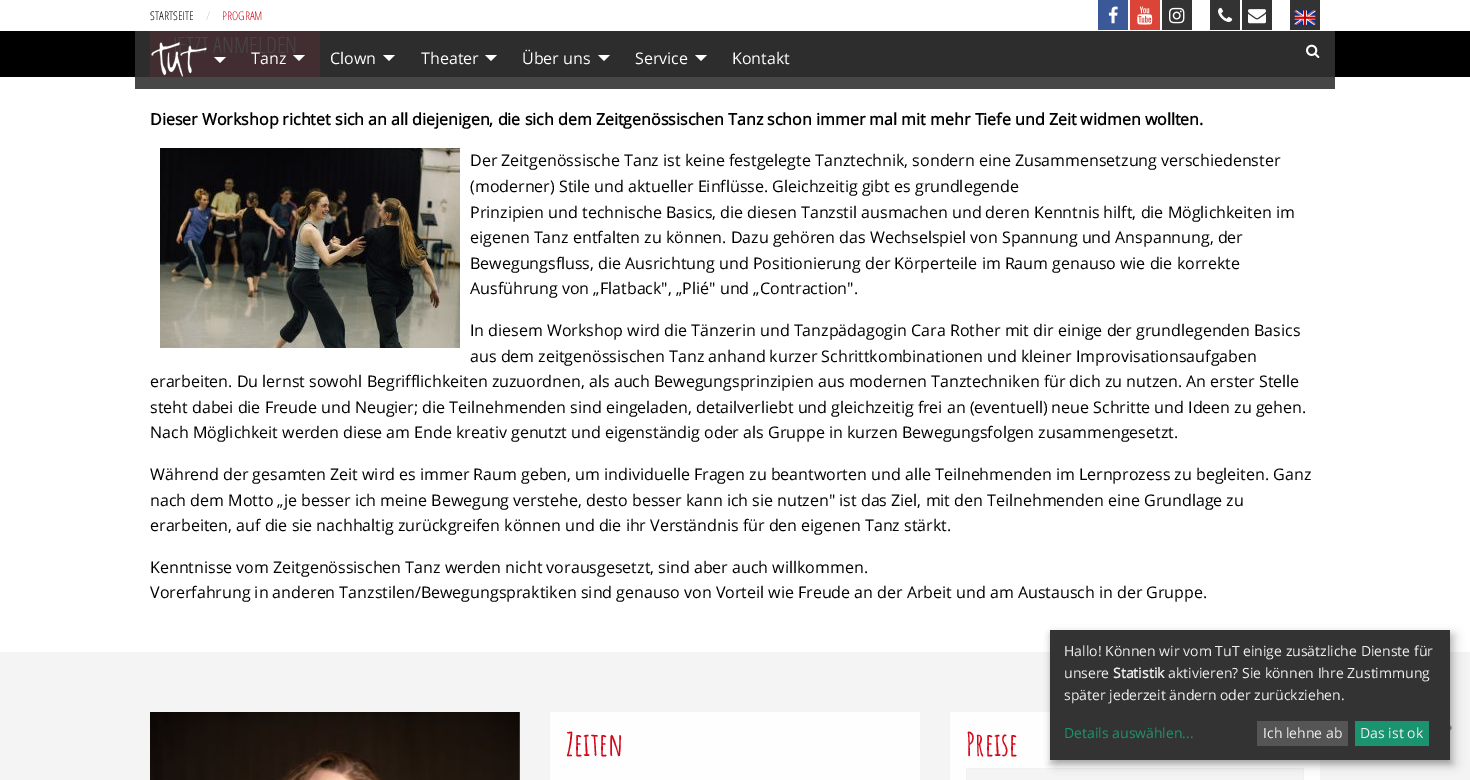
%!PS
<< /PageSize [1470 780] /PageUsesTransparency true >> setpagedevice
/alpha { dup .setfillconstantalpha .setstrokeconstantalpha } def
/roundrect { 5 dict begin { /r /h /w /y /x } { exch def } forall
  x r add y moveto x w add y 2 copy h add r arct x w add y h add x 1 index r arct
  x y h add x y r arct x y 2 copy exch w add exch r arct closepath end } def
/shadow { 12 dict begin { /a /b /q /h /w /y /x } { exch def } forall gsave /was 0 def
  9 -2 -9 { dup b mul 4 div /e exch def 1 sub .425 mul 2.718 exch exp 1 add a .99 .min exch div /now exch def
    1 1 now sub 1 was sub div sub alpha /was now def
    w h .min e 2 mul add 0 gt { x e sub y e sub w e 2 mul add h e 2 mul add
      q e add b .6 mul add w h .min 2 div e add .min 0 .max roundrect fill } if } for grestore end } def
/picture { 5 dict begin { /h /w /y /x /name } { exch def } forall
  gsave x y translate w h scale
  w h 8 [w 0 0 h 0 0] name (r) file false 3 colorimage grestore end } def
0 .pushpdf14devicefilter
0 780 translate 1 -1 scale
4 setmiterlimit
0 setgray
0 0 1470 780 rectfill
0.176 setgray
135 31 1200 46 rectfill
1 setgray
0 0 1470 31 rectfill
/OpenSansCondensed-Light [12 0 0 -12 0 0] selectfont
0 setgray
150 20 moveto (STARTSEITE) show
0.792 setgray
206 20 moveto (/) show
0.824 0.035 0.098 setrgbcolor
222 20 moveto (PROGRAM) show
0.231 0.349 0.596 setrgbcolor
1098 0 30 30 rectfill
(img1.rgb) 1108 6 10 18 picture
0.859 0.267 0.216 setrgbcolor
1130 0 30 30 rectfill
(img2.rgb) 1137 6 16 19 picture
0.2 setgray
1162 0 30 30 rectfill
(img3.rgb) 1169 7 16 17 picture
1210 0 30 30 rectfill
(img4.rgb) 1218 7 15 15 picture
1242 0 30 30 rectfill
(img5.rgb) 1248 9 18 15 picture
1290 0 30 30 rectfill
(img6.rgb) 1294 10 22 15 picture
0.259 0.18 0.188 setrgbcolor
150 31 170 46 rectfill
/OpenSansCondensed-Light [22.5 0 0 -22.5 0 0] selectfont
0.278 setgray
173 53 moveto (JETZT ANMELDEN) show
(img7.rgb) 151 42 56 35 picture
1 setgray
newpath 214 57 moveto 226 57 lineto 220 63 lineto closepath fill
/OpenSans-Regular [16 0 0 -16 0 0] selectfont
251 64 moveto (Tanz) show
newpath 293 55 moveto 305 55 lineto 299 61 lineto closepath fill
330 64 moveto (Clown) show
newpath 383 55 moveto 395 55 lineto 389 61 lineto closepath fill
421 64 moveto (Theater) show
newpath 485 55 moveto 497 55 lineto 491 61 lineto closepath fill
522 64 moveto (Über uns) show
newpath 598 55 moveto 610 55 lineto 604 61 lineto closepath fill
635 64 moveto (Service) show
newpath 695 55 moveto 707 55 lineto 701 61 lineto closepath fill
732 64 moveto (Kontakt) show
(img8.rgb) 1306 44 14 14 picture
0 77 1470 575 rectfill
0.278 setgray
135 77 1200 12 rectfill
/OpenSans-Bold [16 0 0 -16 0 0] selectfont
0 setgray
150 125 moveto (Dieser Workshop richtet sich an all diejenigen, die sich dem Zeitgenössischen Tanz schon immer mal mit mehr Tiefe und Zeit widmen wollten.) show
(img9.rgb) 160 148 300 200 picture
/OpenSans-Regular [16 0 0 -16 0 0] selectfont
470 166 moveto (Der Zeitgenössische Tanz ist keine festgelegte Tanztechnik, sondern eine Zusammensetzung verschiedenster) show
470 192 moveto (\(moderner\) Stile und aktueller Einflüsse. Gleichzeitig gibt es grundlegende) show
470 218 moveto (Prinzipien und technische Basics, die diesen Tanzstil ausmachen und deren Kenntnis hilft, die Möglichkeiten im) show
470 243 moveto (eigenen Tanz entfalten zu können. Dazu gehören das Wechselspiel von Spannung und Anspannung, der) show
470 269 moveto (Bewegungsfluss, die Ausrichtung und Positionierung der Körperteile im Raum genauso wie die korrekte) show
470 294 moveto (Ausführung von „Flatback", „Plié" und „Contraction".) show
470 336 moveto (In diesem Workshop wird die Tänzerin und Tanzpädagogin Cara Rother mit dir einige der grundlegenden Basics) show
470 362 moveto (aus dem zeitgenössischen Tanz anhand kurzer Schrittkombinationen und kleiner Improvisationsaufgaben) show
150 387 moveto (erarbeiten. Du lernst sowohl Begrifflichkeiten zuzuordnen, als auch Bewegungsprinzipien aus modernen Tanztechniken für dich zu nutzen. An erster Stelle) show
150 413 moveto (steht dabei die Freude und Neugier; die Teilnehmenden sind eingeladen, detailverliebt und gleichzeitig frei an \(eventuell\) neue Schritte und Ideen zu gehen.) show
150 438 moveto (Nach Möglichkeit werden diese am Ende kreativ genutzt und eigenständig oder als Gruppe in kurzen Bewegungsfolgen zusammengesetzt.) show
150 480 moveto (Während der gesamten Zeit wird es immer Raum geben, um individuelle Fragen zu beantworten und alle Teilnehmenden im Lernprozess zu begleiten. Ganz) show
150 506 moveto (nach dem Motto „je besser ich meine Bewegung verstehe, desto besser kann ich sie nutzen" ist das Ziel, mit den Teilnehmenden eine Grundlage zu) show
150 531 moveto (erarbeiten, auf die sie nachhaltig zurückgreifen können und die ihr Verständnis für den eigenen Tanz stärkt.) show
150 573 moveto (Kenntnisse vom Zeitgenössischen Tanz werden nicht vorausgesetzt, sind aber auch willkommen.) show
150 598 moveto (Vorerfahrung in anderen Tanzstilen/Bewegungspraktiken sind genauso von Vorteil wie Freude an der Arbeit und am Austausch in der Gruppe.) show
0.957 setgray
0 652 1470 128 rectfill
(img10.rgb) 150 712 370 68 picture
0.996 setgray
550 712 370 68 rectfill
/AmaticSC-Bold [32 0 0 -32 0 0] selectfont
0.824 0.035 0.098 setrgbcolor
566 756 moveto (Zeiten) show
0.996 setgray
950 712 370 68 rectfill
0.824 0.035 0.098 setrgbcolor
966 756 moveto (Preise) show
0.945 setgray
966 768 338 1 rectfill
1303 768 1 12 rectfill
966 768 1 12 rectfill
0.957 setgray
967 769 336 11 rectfill
(img11.rgb) 1450 725 2 6 picture
0 setgray
1055 635 400 130 0 5 0.19 shadow
1050 634 400 130 0 3 0.2 shadow
0.2 setgray
1050 630 400 130 rectfill
/OpenSans-Regular [14 0 0 -14 0 0] selectfont
0.933 setgray
1064 656 moveto (Hallo! Können wir vom TuT einige zusätzliche Dienste für) show
1064 678 moveto (unsere) show
/OpenSans-Bold [14 0 0 -14 0 0] selectfont
1113 678 moveto (Statistik) show
/OpenSans-Regular [14 0 0 -14 0 0] selectfont
1168 678 moveto (aktivieren? Sie können Ihre Zustimmung) show
1064 700 moveto (später jederzeit ändern oder zurückziehen.) show
0.102 0.576 0.435 setrgbcolor
1064 738 moveto (Details auswählen...) show
0.333 setgray
1257 721 91 25 rectfill
0.933 setgray
1263 738 moveto (Ich lehne ab) show
0.102 0.576 0.435 setrgbcolor
1355 721 74 25 rectfill
0.933 setgray
1360 738 moveto (Das ist ok) show
.poppdf14devicefilter showpage
